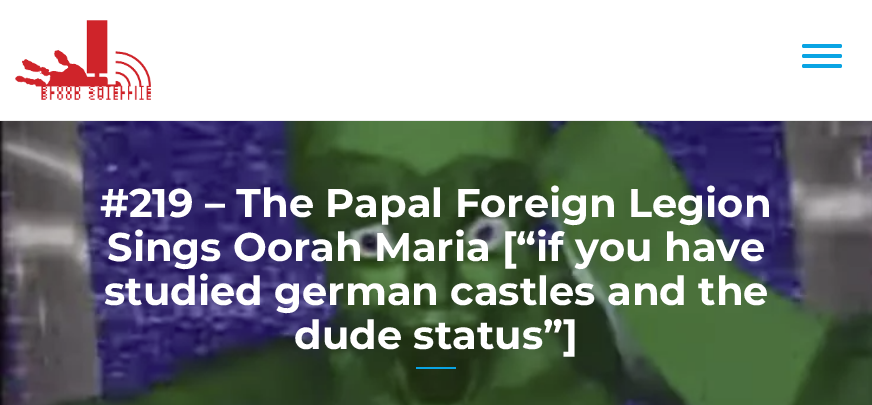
%!PS
<< /PageSize [872 405] >> setpagedevice
/roundrect { 5 dict begin { /r /h /w /y /x } { exch def } forall
  x r add y moveto x w add y 2 copy h add r arct x w add y h add x 1 index r arct
  x y h add x y r arct x y 2 copy exch w add exch r arct closepath end } def
/picture { 5 dict begin { /h /w /y /x /name } { exch def } forall
  gsave x y translate w h scale
  w h 8 [w 0 0 h 0 0] name (r) file false 3 colorimage grestore end } def
0 405 translate 1 -1 scale
4 setmiterlimit
1 setgray
0 0 872 405 rectfill
0.929 setgray
0 120 872 1 rectfill
(img1.rgb) 15 20 136 80 picture
0.039 0.643 0.89 setrgbcolor
802 64 40 4 2 roundrect fill
802 44 40 4 2 roundrect fill
802 54 40 4 2 roundrect fill
(img2.rgb) 0 121 872 284 picture
/Montserrat-Bold [40 0 0 -40 0 0] selectfont
1 setgray
100 217 moveto (#219 – The Papal Foreign Legion) show
107 261 moveto (Sings Oorah Maria [“if you have) show
104 305 moveto (studied german castles and the) show
294 349 moveto (dude status”]) show
0.039 0.643 0.89 setrgbcolor
416 367 40 2 rectfill
showpage
